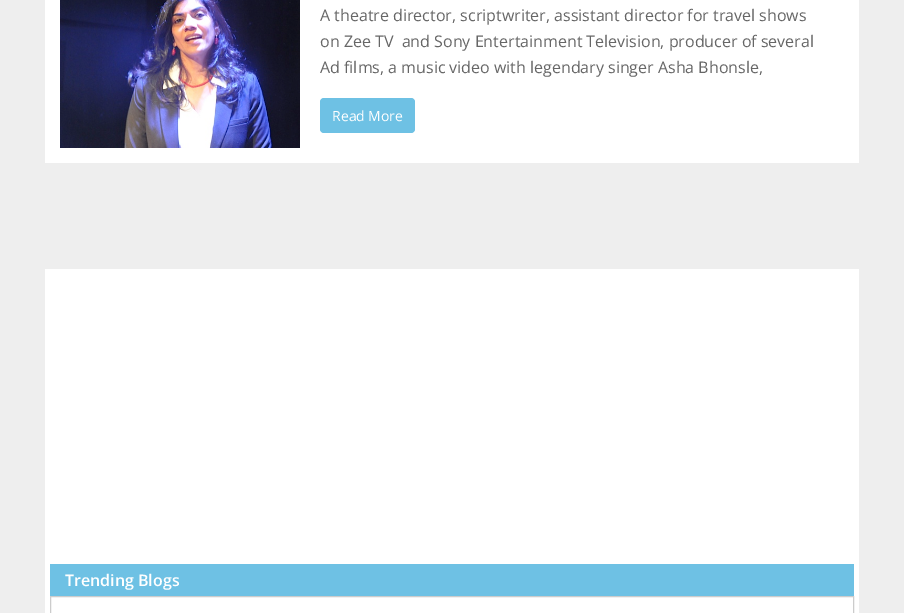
%!PS
<< /PageSize [904 613] >> setpagedevice
/roundrect { 5 dict begin { /r /h /w /y /x } { exch def } forall
  x r add y moveto x w add y 2 copy h add r arct x w add y h add x 1 index r arct
  x y h add x y r arct x y 2 copy exch w add exch r arct closepath end } def
/picture { 5 dict begin { /h /w /y /x /name } { exch def } forall
  gsave x y translate w h scale
  w h 8 [w 0 0 h 0 0] name (r) file false 3 colorimage grestore end } def
0 613 translate 1 -1 scale
4 setmiterlimit
0.933 setgray
0 0 904 613 rectfill
1 setgray
45 0 814 163 rectfill
(img1.rgb) 60 0 240 148 picture
/OpenSans-Regular [16 0 0 -16 0 0] selectfont
0.4 setgray
320 21 moveto (A theatre director, scriptwriter, assistant director for travel shows) show
320 47 moveto (on Zee TV  and Sony Entertainment Television, producer of several) show
320 73 moveto (Ad films, a music video with legendary singer Asha Bhonsle,) show
0.431 0.757 0.894 setrgbcolor
320 98 95 35 4 roundrect fill
/OpenSans-Regular [14 0 0 -14 0 0] selectfont
1 setgray
332 121 moveto (Read More) show
45 269 814 344 rectfill
0.431 0.757 0.894 setrgbcolor
50 564 804 32 rectfill
/OpenSans-SemiBold [16 0 0 -16 0 0] selectfont
1 setgray
65 586 moveto (Trending Blogs) show
0.8 setgray
50.5 596.5 803 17 rectstroke
showpage
